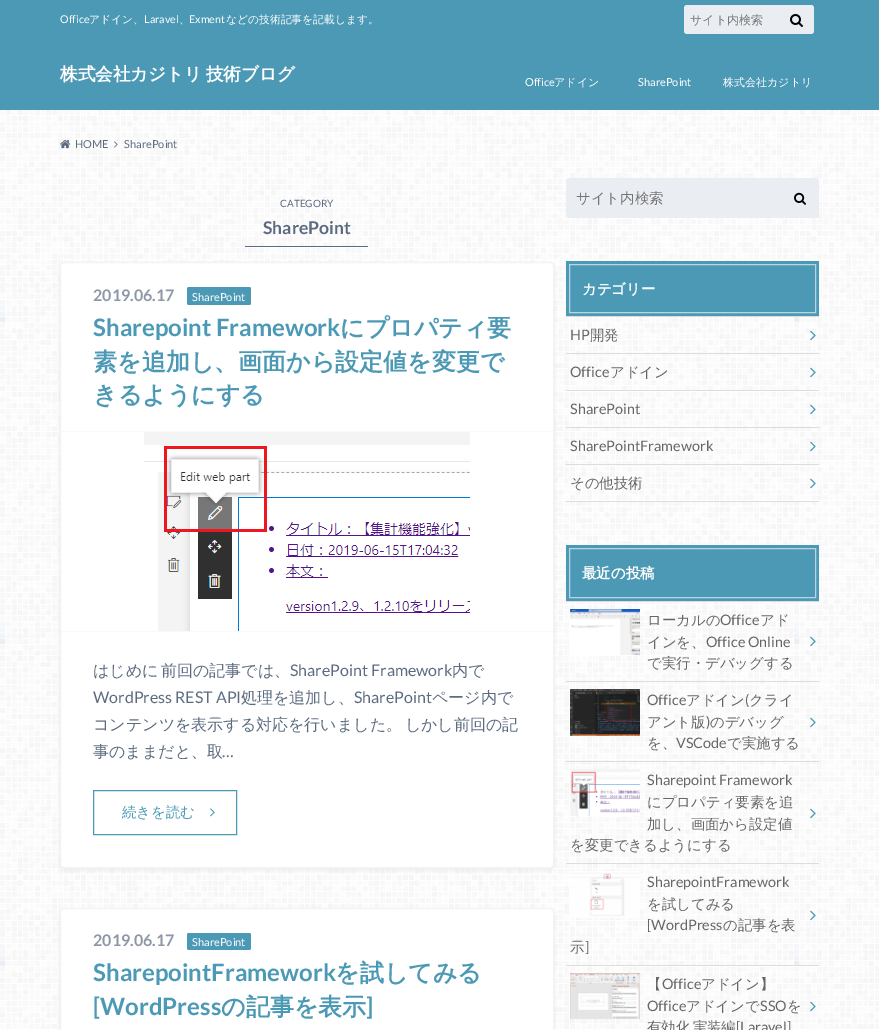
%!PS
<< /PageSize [879 1030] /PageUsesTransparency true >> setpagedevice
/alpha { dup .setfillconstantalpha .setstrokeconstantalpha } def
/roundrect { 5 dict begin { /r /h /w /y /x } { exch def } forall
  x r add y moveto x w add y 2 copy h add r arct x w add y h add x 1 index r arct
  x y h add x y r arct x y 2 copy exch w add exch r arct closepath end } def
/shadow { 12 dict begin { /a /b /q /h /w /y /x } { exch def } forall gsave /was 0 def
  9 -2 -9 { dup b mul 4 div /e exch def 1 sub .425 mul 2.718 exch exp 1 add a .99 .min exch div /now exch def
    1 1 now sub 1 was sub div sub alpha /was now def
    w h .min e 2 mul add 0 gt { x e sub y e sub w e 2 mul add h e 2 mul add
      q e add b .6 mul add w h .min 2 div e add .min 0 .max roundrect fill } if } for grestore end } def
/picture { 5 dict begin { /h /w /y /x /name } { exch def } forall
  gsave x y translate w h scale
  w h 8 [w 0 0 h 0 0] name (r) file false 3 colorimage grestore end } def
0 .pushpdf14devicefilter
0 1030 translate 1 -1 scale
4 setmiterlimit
1 setgray
0 0 879 1030 rectfill
(img1.rgb) 0 110 879 919 picture
0.294 0.6 0.71 setrgbcolor
0 0 879 110 rectfill
/Lato-Regular [10.75 0 0 -10.75 0 0] selectfont
1 setgray
60 23 moveto (Office) show
/WenQuanYiZenHei-Medium [10.75 0 0 -10.75 0 0] selectfont
89 23 moveto (アドイン、) show
/Lato-Regular [10.75 0 0 -10.75 0 0] selectfont
144 23 moveto (Laravel) show
/WenQuanYiZenHei-Medium [10.75 0 0 -10.75 0 0] selectfont
179 23 moveto (、) show
/Lato-Regular [10.75 0 0 -10.75 0 0] selectfont
189 23 moveto (Exment) show
/WenQuanYiZenHei-Medium [10.75 0 0 -10.75 0 0] selectfont
226 23 moveto (などの技術記事を記載します。) show
0.918 0.929 0.949 setrgbcolor
684 5 130 29 3 roundrect fill
/WenQuanYiZenHei-Medium [12 0 0 -12 0 0] selectfont
0.459 setgray
690 24 moveto (サイト内検索) show
(img2.rgb) 790 14 13 13 picture
/WenQuanYiZenHei-Bold [17.6 0 0 -17.6 0 0] selectfont
1 setgray
60 80 moveto -2 0 32 (株式会社カジトリ 技術ブログ) widthshow
/Lato-Regular [11 0 0 -11 0 0] selectfont
525 86 moveto (Office) show
/WenQuanYiZenHei-Medium [11 0 0 -11 0 0] selectfont
554 86 moveto (アドイン) show
/Lato-Regular [11 0 0 -11 0 0] selectfont
638 86 moveto (SharePoint) show
/WenQuanYiZenHei-Medium [11 0 0 -11 0 0] selectfont
723 86 moveto (株式会社カジトリ) show
(img3.rgb) 60 139 11 10 picture
/Lato-Regular [11 0 0 -11 0 0] selectfont
0.361 0.42 0.502 setrgbcolor
75 148 moveto (HOME) show
(img4.rgb) 114 141 4 7 picture
124 148 moveto (SharePoint) show
245 246 123 1 rectfill
/Lato-Regular [10 0 0 -10 0 0] selectfont
280 207 moveto (CATEGORY) show
/Lato-Bold [17.6 0 0 -17.6 0 0] selectfont
263 234 moveto (SharePoint) show
0.541 setgray
60 264 494 606 4 2.5 0.15 shadow
1 setgray
60.5 262.5 493 605 3.5 roundrect gsave fill grestore
0.953 setgray
stroke
0.973 0.976 0.98 setrgbcolor
61 431 492 1 rectfill
/Lato-Bold [16 0 0 -16 0 0] selectfont
0.553 0.592 0.651 setrgbcolor
93 301 moveto (2019.06.17) show
0.294 0.6 0.71 setrgbcolor
187 287 64 18 2 roundrect fill
/Lato-Regular [11 0 0 -11 0 0] selectfont
1 setgray
192 301 moveto (SharePoint) show
/Lato-Bold [24 0 0 -24 0 0] selectfont
0.294 0.6 0.71 setrgbcolor
93 336 moveto (Sharepoint Framework) show
/WenQuanYiZenHei-Bold [24 0 0 -24 0 0] selectfont
340 336 moveto (にプロパティ要) show
93 370 moveto (素を追加し、画面から設定値を変更で) show
93 403 moveto (きるようにする) show
0.973 0.976 0.98 setrgbcolor
61 631 492 1 rectfill
(img5.rgb) 144 432 326 199 picture
/WenQuanYiZenHei-Medium [16 0 0 -16 0 0] selectfont
0.361 0.42 0.502 setrgbcolor
93 676 moveto (はじめに) show
161 676 moveto (前回の記事では、) show
/Lato-Regular [16 0 0 -16 0 0] selectfont
290 676 moveto (SharePoint Framework) show
/WenQuanYiZenHei-Medium [16 0 0 -16 0 0] selectfont
452 676 moveto (内で) show
/Lato-Regular [16 0 0 -16 0 0] selectfont
93 703 moveto (WordPress REST API) show
/WenQuanYiZenHei-Medium [16 0 0 -16 0 0] selectfont
241 703 moveto (処理を追加し、) show
/Lato-Regular [16 0 0 -16 0 0] selectfont
354 703 moveto (SharePoint) show
/WenQuanYiZenHei-Medium [16 0 0 -16 0 0] selectfont
432 703 moveto (ページ内で) show
93 730 moveto -2 0 32 (コンテンツを表示する対応を行いました。 しかし前回の記) widthshow
93 757 moveto (事のままだと、取) show
/Lato-Regular [16 0 0 -16 0 0] selectfont
222 757 moveto (…) show
0.294 0.6 0.71 setrgbcolor
93.5 790.5 143 44 rectstroke
/WenQuanYiZenHei-Medium [14.4 0 0 -14.4 0 0] selectfont
122 817 moveto (続きを読む) show
(img6.rgb) 210 808 5 9 picture
0.541 setgray
60 910 494 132 4 2.5 0.15 shadow
1 setgray
60.5 908.5 493 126 3.5 roundrect gsave fill grestore
0.953 setgray
stroke
/Lato-Bold [16 0 0 -16 0 0] selectfont
0.553 0.592 0.651 setrgbcolor
93 946 moveto (2019.06.17) show
0.294 0.6 0.71 setrgbcolor
187 933 64 17 2 roundrect fill
/Lato-Regular [11 0 0 -11 0 0] selectfont
1 setgray
192 946 moveto (SharePoint) show
/Lato-Bold [24 0 0 -24 0 0] selectfont
0.294 0.6 0.71 setrgbcolor
93 981 moveto (SharepointFramework) show
/WenQuanYiZenHei-Bold [24 0 0 -24 0 0] selectfont
335 981 moveto (を試してみる) show
/Lato-Bold [24 0 0 -24 0 0] selectfont
93 1015 moveto ([WordPress) show
/WenQuanYiZenHei-Bold [24 0 0 -24 0 0] selectfont
221 1015 moveto (の記事を表示) show
/Lato-Bold [24 0 0 -24 0 0] selectfont
366 1015 moveto (]) show
0.918 0.929 0.949 setrgbcolor
566 178 253 40 3 roundrect fill
/WenQuanYiZenHei-Medium [14.4 0 0 -14.4 0 0] selectfont
0.459 setgray
576 203 moveto (サイト内検索) show
(img7.rgb) 794 192 12 13 picture
0.294 0.6 0.71 setrgbcolor
566 261 253 55 rectfill
0.718 0.839 0.882 setrgbcolor
569.5 264.5 246 48 rectstroke
/WenQuanYiZenHei-Bold [14.4 0 0 -14.4 0 0] selectfont
1 setgray
582 294 moveto (カテゴリー) show
0.867 setgray
566 316 253 1 rectfill
566 353 253 1 rectfill
/Lato-Regular [14.4 0 0 -14.4 0 0] selectfont
0.4 setgray
570 340 moveto (HP) show
/WenQuanYiZenHei-Medium [14.4 0 0 -14.4 0 0] selectfont
590 340 moveto (開発) show
(img8.rgb) 810 330 6 11 picture
0.867 setgray
566 390 253 1 rectfill
/Lato-Regular [14.4 0 0 -14.4 0 0] selectfont
0.4 setgray
570 377 moveto (Office) show
/WenQuanYiZenHei-Medium [14.4 0 0 -14.4 0 0] selectfont
610 377 moveto (アドイン) show
(img9.rgb) 810 367 6 11 picture
0.867 setgray
566 427 253 1 rectfill
/Lato-Regular [14.4 0 0 -14.4 0 0] selectfont
0.4 setgray
570 414 moveto (SharePoint) show
(img10.rgb) 810 404 6 11 picture
0.867 setgray
566 464 253 1 rectfill
0.4 setgray
570 451 moveto (SharePointFramework) show
(img11.rgb) 810 441 6 11 picture
0.867 setgray
566 501 253 1 rectfill
/WenQuanYiZenHei-Medium [14.4 0 0 -14.4 0 0] selectfont
0.4 setgray
570 488 moveto (その他技術) show
(img12.rgb) 810 478 6 11 picture
0.294 0.6 0.71 setrgbcolor
566 545 253 56 rectfill
0.718 0.839 0.882 setrgbcolor
569.5 548.5 246 49 rectstroke
/WenQuanYiZenHei-Bold [14.4 0 0 -14.4 0 0] selectfont
1 setgray
582 578 moveto (最近の投稿) show
0.867 setgray
566 601 253 1 rectfill
566 681 253 1 rectfill
(img13.rgb) 570 609 70 46 picture
/WenQuanYiZenHei-Medium [14.4 0 0 -14.4 0 0] selectfont
0.4 setgray
647 625 moveto (ローカルの) show
/Lato-Regular [14.4 0 0 -14.4 0 0] selectfont
720 625 moveto (Office) show
/WenQuanYiZenHei-Medium [14.4 0 0 -14.4 0 0] selectfont
760 625 moveto (アド) show
647 647 moveto (インを、) show
/Lato-Regular [14.4 0 0 -14.4 0 0] selectfont
706 647 moveto (Office Online) show
(img14.rgb) 810 636 6 11 picture
/WenQuanYiZenHei-Medium [14.4 0 0 -14.4 0 0] selectfont
647 668 moveto (で実行・デバッグする) show
0.867 setgray
566 761 253 1 rectfill
(img15.rgb) 570 689 70 47 picture
/Lato-Regular [14.4 0 0 -14.4 0 0] selectfont
0.4 setgray
647 705 moveto (Office) show
/WenQuanYiZenHei-Medium [14.4 0 0 -14.4 0 0] selectfont
686 705 moveto (アドイン クライ) show
/Lato-Regular [14.4 0 0 -14.4 0 0] selectfont
745 705 moveto (\() show
/WenQuanYiZenHei-Medium [14.4 0 0 -14.4 0 0] selectfont
647 727 moveto (アント版 のデバッグ) show
/Lato-Regular [14.4 0 0 -14.4 0 0] selectfont
706 727 moveto (\)) show
(img16.rgb) 810 717 6 11 picture
/WenQuanYiZenHei-Medium [14.4 0 0 -14.4 0 0] selectfont
647 748 moveto (を、) show
/Lato-Regular [14.4 0 0 -14.4 0 0] selectfont
676 748 moveto (VSCode) show
/WenQuanYiZenHei-Medium [14.4 0 0 -14.4 0 0] selectfont
727 748 moveto (で実施する) show
0.867 setgray
566 863 253 1 rectfill
(img17.rgb) 570 769 70 47 picture
/Lato-Regular [14.4 0 0 -14.4 0 0] selectfont
0.4 setgray
647 785 moveto (Sharepoint Framework) show
/WenQuanYiZenHei-Medium [14.4 0 0 -14.4 0 0] selectfont
647 807 moveto (にプロパティ要素を追) show
(img18.rgb) 810 808 6 11 picture
647 829 moveto (加し、画面から設定値) show
570 850 moveto (を変更できるようにする) show
0.867 setgray
566 965 253 1 rectfill
(img19.rgb) 570 871 70 47 picture
/Lato-Regular [14.4 0 0 -14.4 0 0] selectfont
0.4 setgray
647 887 moveto (SharepointFramework) show
/WenQuanYiZenHei-Medium [14.4 0 0 -14.4 0 0] selectfont
647 909 moveto (を試してみる) show
(img20.rgb) 810 910 6 11 picture
/Lato-Regular [14.4 0 0 -14.4 0 0] selectfont
647 930 moveto ([WordPress) show
/WenQuanYiZenHei-Medium [14.4 0 0 -14.4 0 0] selectfont
723 930 moveto (の記事を表) show
570 952 moveto (示) show
/Lato-Regular [14.4 0 0 -14.4 0 0] selectfont
585 952 moveto (]) show
(img21.rgb) 570 973 70 46 picture
/WenQuanYiZenHei-Medium [14.4 0 0 -14.4 0 0] selectfont
647 989 moveto (【) show
/Lato-Regular [14.4 0 0 -14.4 0 0] selectfont
662 989 moveto (Office) show
/WenQuanYiZenHei-Medium [14.4 0 0 -14.4 0 0] selectfont
701 989 moveto (アドイン】) show
/Lato-Regular [14.4 0 0 -14.4 0 0] selectfont
647 1011 moveto (Office) show
/WenQuanYiZenHei-Medium [14.4 0 0 -14.4 0 0] selectfont
686 1011 moveto (アドインで) show
/Lato-Regular [14.4 0 0 -14.4 0 0] selectfont
760 1011 moveto (SSO) show
/WenQuanYiZenHei-Medium [14.4 0 0 -14.4 0 0] selectfont
787 1011 moveto (を) show
(img22.rgb) 810 1001 6 11 picture
647 1032 moveto -2 0 32 (有効化 実装編) widthshow
/Lato-Regular [14.4 0 0 -14.4 0 0] selectfont
736 1032 moveto ([Laravel]) show
.poppdf14devicefilter showpage
